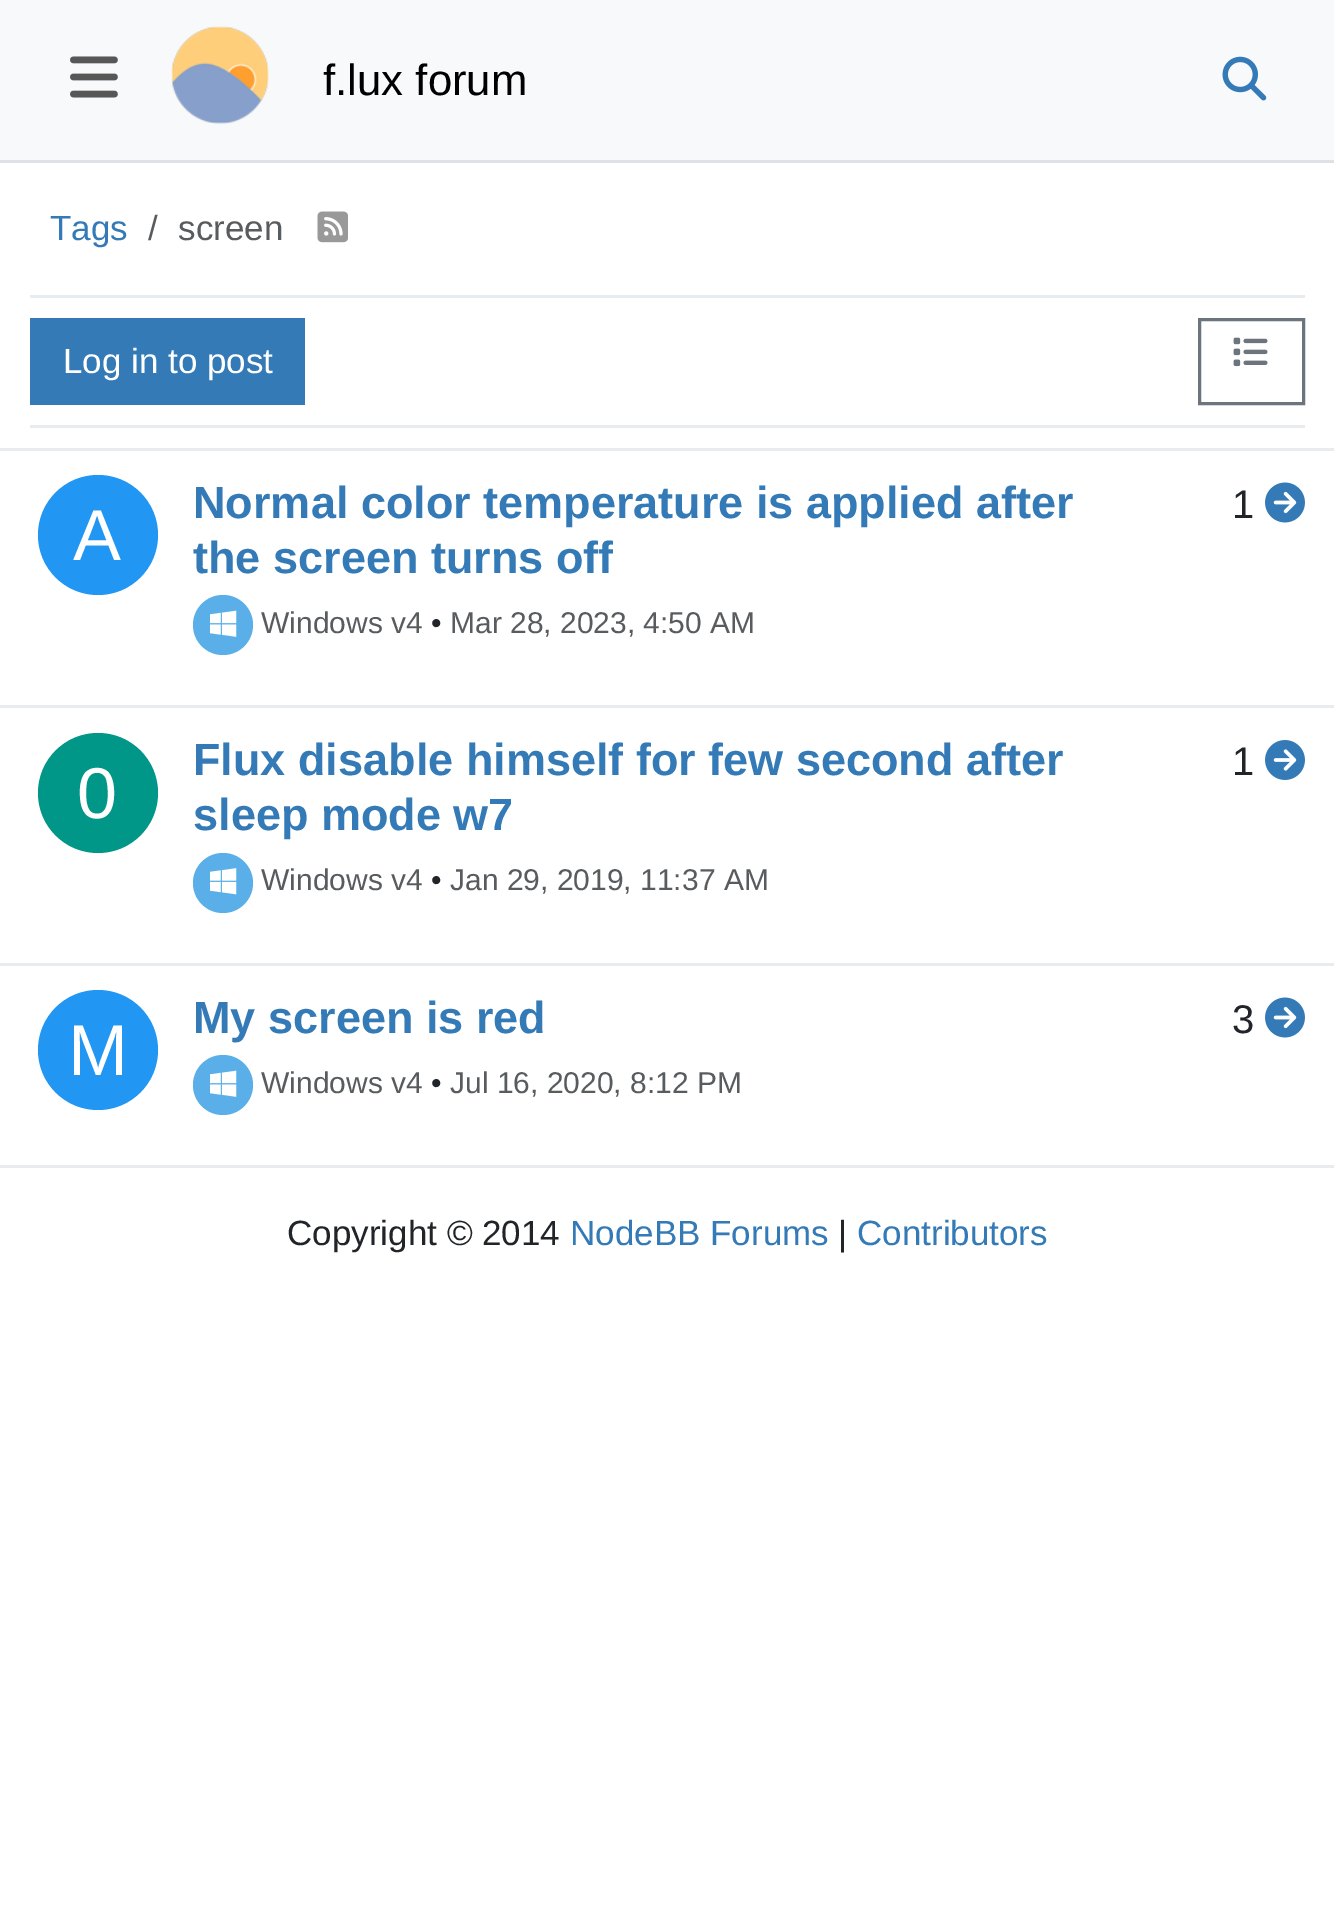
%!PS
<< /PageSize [1334 1906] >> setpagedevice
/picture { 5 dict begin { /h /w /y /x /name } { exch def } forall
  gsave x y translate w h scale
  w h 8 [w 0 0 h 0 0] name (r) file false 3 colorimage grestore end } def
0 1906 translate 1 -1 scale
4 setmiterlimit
1 setgray
0 0 1334 1906 rectfill
0.973 0.976 0.98 setrgbcolor
0 0 1334 160 rectfill
0.871 0.886 0.902 setrgbcolor
0 160 1334 3 rectfill
(img1.rgb) 70 56 48 42 picture
(img2.rgb) 171 26 98 98 picture
/LiberationSans-Regular [43.75 0 0 -43.75 0 0] selectfont
0 setgray
323 95 moveto (f.lux forum) show
(img3.rgb) 1222 56 45 45 picture
/LiberationSans-Regular [35 0 0 -35 0 0] selectfont
0.2 0.478 0.718 setrgbcolor
50 240 moveto (Tags) show
0.349 0.361 0.373 setrgbcolor
148 240 moveto (/) show
178 240 moveto (screen) show
(img4.rgb) 317 211 31 32 picture
0.914 0.925 0.937 setrgbcolor
30 295 1275 3 rectfill
30 425 1275 3 rectfill
0.2 0.478 0.718 setrgbcolor
30 318 275 87 rectfill
1 setgray
63 373 moveto (Log in to post) show
0.424 0.459 0.49 setrgbcolor
3 setlinewidth
1199.5 319.5 104 84 rectstroke
(img5.rgb) 1233 337 35 30 picture
0.914 0.925 0.937 setrgbcolor
0 448 1334 3 rectfill
0.129 0.588 0.953 setrgbcolor
newpath 98 535 60 0 360 arc closepath fill
/LiberationSans-Regular [72 0 0 -72 0 0] selectfont
1 setgray
73 560 moveto (A) show
/LiberationSans-Bold [45 0 0 -45 0 0] selectfont
0.2 0.478 0.718 setrgbcolor
193 518 moveto (Normal color temperature is applied after) show
193 573 moveto (the screen turns off) show
0.353 0.686 0.91 setrgbcolor
newpath 223 625 30 0 360 arc closepath fill
(img6.rgb) 210 610 27 27 picture
/LiberationSans-Regular [30 0 0 -30 0 0] selectfont
0.349 0.361 0.373 setrgbcolor
261 633 moveto (Windows v4) show
0.129 0.145 0.161 setrgbcolor
431 633 moveto (•) show
0.349 0.361 0.373 setrgbcolor
450 633 moveto (Mar 28, 2023, 4:50 AM) show
/LiberationSans-Regular [40 0 0 -40 0 0] selectfont
0.129 0.145 0.161 setrgbcolor
1232 518 moveto (1) show
(img7.rgb) 1265 482 40 41 picture
0.914 0.925 0.937 setrgbcolor
0 705 1334 3 rectfill
0 0.588 0.533 setrgbcolor
newpath 98 793 60 0 360 arc closepath fill
/LiberationSans-Regular [72 0 0 -72 0 0] selectfont
1 setgray
77 818 moveto (0) show
/LiberationSans-Bold [45 0 0 -45 0 0] selectfont
0.2 0.478 0.718 setrgbcolor
193 775 moveto (Flux disable himself for few second after) show
193 830 moveto (sleep mode w7) show
0.353 0.686 0.91 setrgbcolor
newpath 223 883 30 0 360 arc closepath fill
(img8.rgb) 210 868 27 27 picture
/LiberationSans-Regular [30 0 0 -30 0 0] selectfont
0.349 0.361 0.373 setrgbcolor
261 890 moveto (Windows v4) show
0.129 0.145 0.161 setrgbcolor
431 890 moveto (•) show
0.349 0.361 0.373 setrgbcolor
450 890 moveto (Jan 29, 2019, 11:37 AM) show
/LiberationSans-Regular [40 0 0 -40 0 0] selectfont
0.129 0.145 0.161 setrgbcolor
1232 775 moveto (1) show
(img9.rgb) 1265 740 40 40 picture
0.914 0.925 0.937 setrgbcolor
0 963 1334 3 rectfill
0 1165 1334 3 rectfill
0.129 0.588 0.953 setrgbcolor
newpath 98 1050 60 0 360 arc closepath fill
/LiberationSans-Regular [72 0 0 -72 0 0] selectfont
1 setgray
68 1075 moveto (M) show
/LiberationSans-Bold [45 0 0 -45 0 0] selectfont
0.2 0.478 0.718 setrgbcolor
193 1033 moveto (My screen is red) show
0.353 0.686 0.91 setrgbcolor
newpath 223 1085 30 0 360 arc closepath fill
(img6.rgb) 210 1070 27 27 picture
/LiberationSans-Regular [30 0 0 -30 0 0] selectfont
0.349 0.361 0.373 setrgbcolor
261 1093 moveto (Windows v4) show
0.129 0.145 0.161 setrgbcolor
431 1093 moveto (•) show
0.349 0.361 0.373 setrgbcolor
450 1093 moveto (Jul 16, 2020, 8:12 PM) show
/LiberationSans-Regular [40 0 0 -40 0 0] selectfont
0.129 0.145 0.161 setrgbcolor
1232 1033 moveto (3) show
(img7.rgb) 1265 997 40 41 picture
/LiberationSans-Regular [35 0 0 -35 0 0] selectfont
287 1245 moveto (Copyright © 2014) show
0.2 0.478 0.718 setrgbcolor
570 1245 moveto (NodeBB Forums) show
0.129 0.145 0.161 setrgbcolor
838 1245 moveto (|) show
0.2 0.478 0.718 setrgbcolor
857 1245 moveto (Contributors) show
showpage
